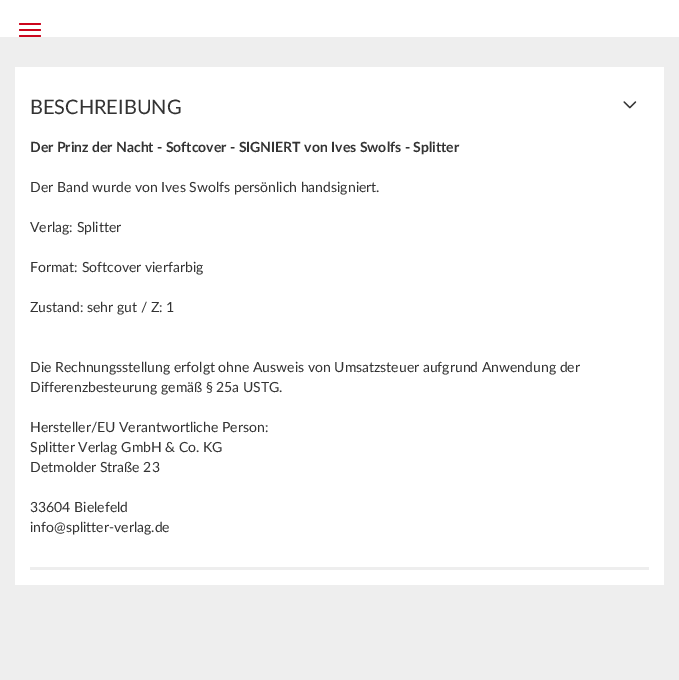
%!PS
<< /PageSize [679 680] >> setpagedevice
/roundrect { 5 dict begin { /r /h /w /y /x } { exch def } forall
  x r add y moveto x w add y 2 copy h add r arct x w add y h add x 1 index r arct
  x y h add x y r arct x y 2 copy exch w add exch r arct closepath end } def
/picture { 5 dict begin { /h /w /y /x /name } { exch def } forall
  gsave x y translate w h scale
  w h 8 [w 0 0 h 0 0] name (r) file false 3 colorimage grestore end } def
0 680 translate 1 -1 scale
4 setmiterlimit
1 setgray
0 0 679 680 rectfill
0.8 0.024 0.114 setrgbcolor
19 29 22 2 1 roundrect fill
19 23 22 2 1 roundrect fill
19 35 22 2 1 roundrect fill
0.933 setgray
0 37 679 643 rectfill
1 setgray
15 67 649 518 rectfill
/Lato-Regular [20 0 0 -20 0 0] selectfont
0.2 setgray
30 114 moveto (BESCHREIBUNG) show
(img1.rgb) 623 101 14 8 picture
0.933 setgray
30 567 619 3 rectfill
/Lato-Bold [14 0 0 -14 0 0] selectfont
0.2 setgray
30 152 moveto (Der Prinz der Nacht - Softcover - SIGNIERT von Ives Swolfs - Splitter) show
/Lato-Regular [14 0 0 -14 0 0] selectfont
30 192 moveto (Der Band wurde von Ives Swolfs persönlich handsigniert.) show
30 232 moveto (Verlag: Splitter) show
30 272 moveto (Format: Softcover vierfarbig) show
30 312 moveto (Zustand: sehr gut / Z: 1) show
30 372 moveto (Die Rechnungsstellung erfolgt ohne Ausweis von Umsatzsteuer aufgrund Anwendung der) show
30 392 moveto (Differenzbesteurung gemäß § 25a USTG.) show
30 432 moveto (Hersteller/EU Verantwortliche Person:) show
30 452 moveto (Splitter Verlag GmbH & Co. KG) show
30 472 moveto (Detmolder Straße 23) show
30 512 moveto (33604 Bielefeld) show
30 532 moveto (info@splitter-verlag.de) show
showpage
